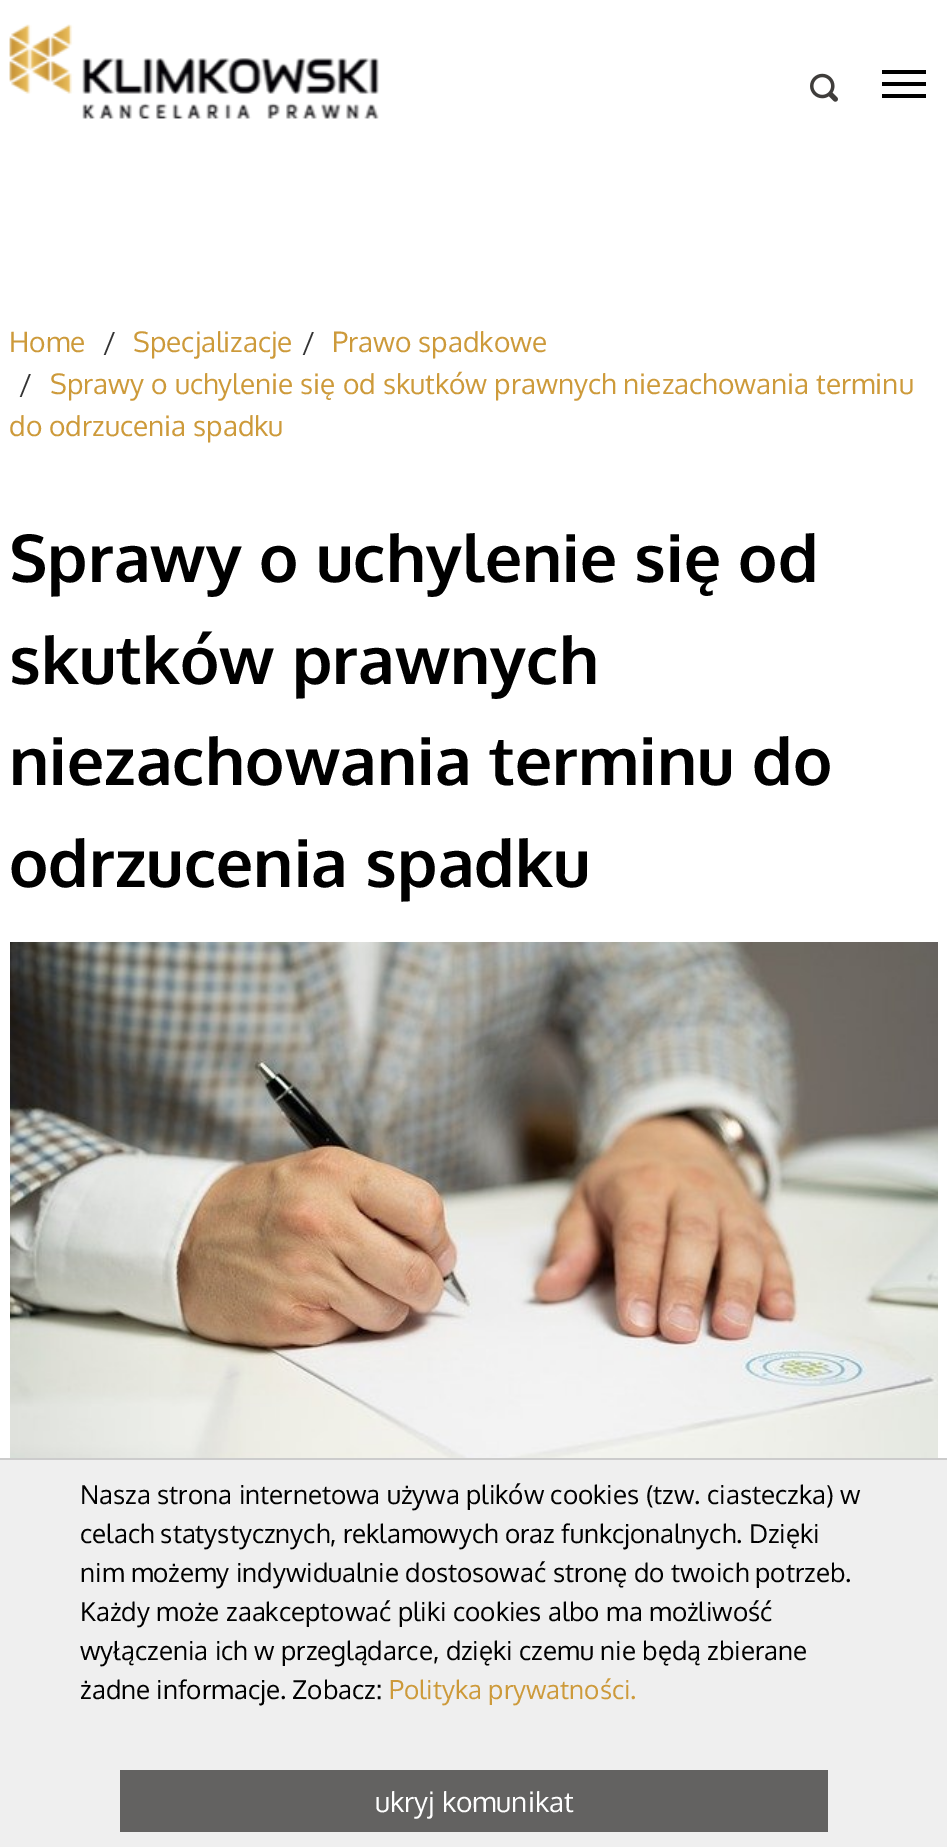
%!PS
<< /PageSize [947 1847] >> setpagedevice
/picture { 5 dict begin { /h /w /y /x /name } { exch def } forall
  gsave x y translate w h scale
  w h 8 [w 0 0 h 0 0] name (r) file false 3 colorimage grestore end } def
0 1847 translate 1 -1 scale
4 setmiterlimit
1 setgray
0 0 947 1847 rectfill
(img1.rgb) 9 24 370 95 picture
(img2.rgb) 810 73 28 29 picture
0 setgray
882 70 44 4 rectfill
882 82 44 4 rectfill
882 94 44 4 rectfill
/Oxygen-Regular [28 0 0 -28 0 0] selectfont
0.804 0.604 0.227 setrgbcolor
9 352 moveto (Home) show
0.2 setgray
103 352 moveto (/) show
0.804 0.604 0.227 setrgbcolor
133 352 moveto (Specjalizacje) show
0.2 setgray
302 352 moveto (/) show
0.804 0.604 0.227 setrgbcolor
332 352 moveto (Prawo spadkowe) show
0.2 setgray
19 394 moveto (/) show
0.804 0.604 0.227 setrgbcolor
50 394 moveto (Sprawy o uchylenie się od skutków prawnych niezachowania terminu) show
9 436 moveto (do odrzucenia spadku) show
/Oxygen-Bold [66 0 0 -66 0 0] selectfont
0 setgray
9 582 moveto (Sprawy o uchylenie się od) show
9 684 moveto (skutków prawnych) show
9 785 moveto (niezachowania terminu do) show
9 887 moveto (odrzucenia spadku) show
(img3.rgb) 10 942 928 516 picture
0.937 setgray
0 1460 947 387 rectfill
0.8 setgray
0 1458 947 2 rectfill
/Oxygen-Regular [26 0 0 -26 0 0] selectfont
0 setgray
80 1504 moveto (Nasza strona internetowa używa plików cookies \(tzw. ciasteczka\) w) show
80 1543 moveto (celach statystycznych, reklamowych oraz funkcjonalnych. Dzięki) show
80 1582 moveto (nim możemy indywidualnie dostosować stronę do twoich potrzeb.) show
80 1621 moveto (Każdy może zaakceptować pliki cookies albo ma możliwość) show
80 1660 moveto (wyłączenia ich w przeglądarce, dzięki czemu nie będą zbierane) show
80 1699 moveto (żadne informacje. Zobacz:) show
0.804 0.604 0.227 setrgbcolor
389 1699 moveto (Polityka prywatności.) show
0.388 0.384 0.38 setrgbcolor
120 1770 708 62 rectfill
/Oxygen-Regular [28 0 0 -28 0 0] selectfont
1 setgray
375 1812 moveto (ukryj komunikat) show
showpage
